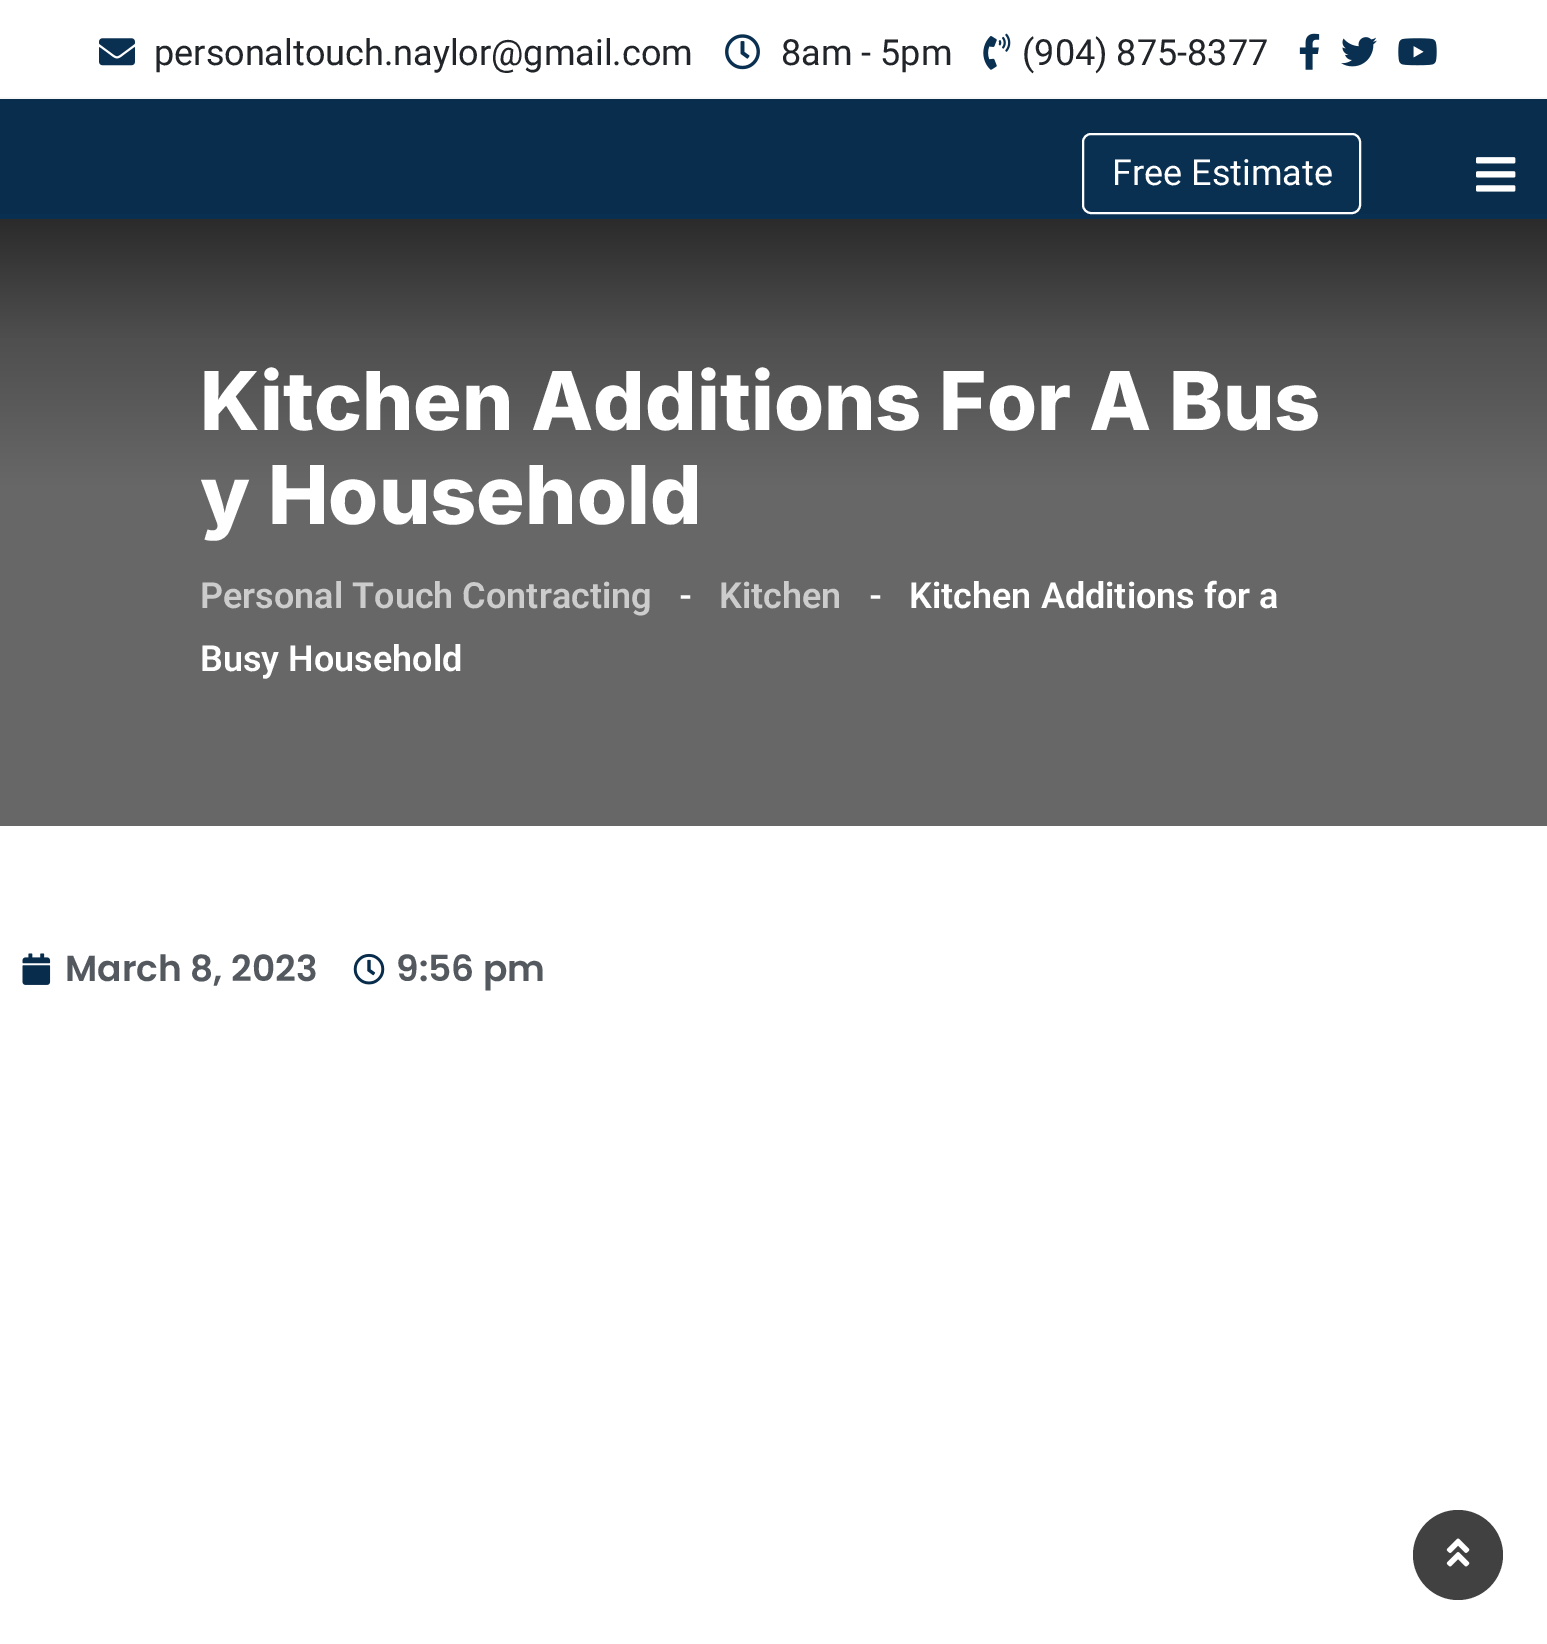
%!PS
<< /PageSize [1547 1644] >> setpagedevice
/roundrect { 5 dict begin { /r /h /w /y /x } { exch def } forall
  x r add y moveto x w add y 2 copy h add r arct x w add y h add x 1 index r arct
  x y h add x y r arct x y 2 copy exch w add exch r arct closepath end } def
/picture { 5 dict begin { /h /w /y /x /name } { exch def } forall
  gsave x y translate w h scale
  w h 8 [w 0 0 h 0 0] name (r) file false 3 colorimage grestore end } def
0 1644 translate 1 -1 scale
4 setmiterlimit
1 setgray
0 0 1547 1644 rectfill
0.973 setgray
0 97 1547 2 rectfill
(img1.rgb) 99 38 36 28 picture
/Roboto-Regular [36 0 0 -36 0 0] selectfont
0.129 0.145 0.161 setrgbcolor
154 65 moveto (personaltouch.naylor@gmail.com) show
(img2.rgb) 725 34 35 36 picture
781 65 moveto (8am - 5pm) show
(img3.rgb) 983 33 28 37 picture
1022 65 moveto (\(904\) 875-8377) show
(img4.rgb) 1299 33 21 37 picture
(img5.rgb) 1341 37 36 30 picture
(img6.rgb) 1398 38 39 28 picture
0.035 0.176 0.298 setrgbcolor
0 99 1547 115 rectfill
0.035 0.184 0.318 setrgbcolor
0 214 1547 5 rectfill
1083 134 277 79 8 roundrect gsave fill grestore
1 setgray
2 setlinewidth
stroke
1112 185 moveto (Free Estimate) show
(img7.rgb) 1476 157 40 35 picture
gsave newpath 0 219 moveto 1547 219 lineto 1547 826 lineto 0 826 lineto closepath clip newpath
<< /ShadingType 2 /ColorSpace /DeviceRGB /Coords [774 218 774 826] /Extend [true true] /Function << /FunctionType 3 /Domain [0 1] /Functions [<< /FunctionType 2 /Domain [0 1] /C0 [0.169 0.169 0.169] /C1 [0.31 0.31 0.31] /N 1 >> << /FunctionType 2 /Domain [0 1] /C0 [0.31 0.31 0.31] /C1 [0.404 0.404 0.404] /N 1 >> << /FunctionType 2 /Domain [0 1] /C0 [0.404 0.404 0.404] /C1 [0.404 0.404 0.404] /N 1 >>] /Bounds [0.2 0.44] /Encode [0 1 0 1 0 1] >> >> shfill grestore
/Inter-ExtraBold [81 0 0 -81 0 0] selectfont
200 430 moveto (Kitchen Additions For A Bus) show
200 524 moveto (y Household) show
/Roboto-SemiBold [36 0 0 -36 0 0] selectfont
0.8 setgray
200 608 moveto (Personal Touch Contracting) show
1 setgray
679 608 moveto (-) show
0.8 setgray
719 608 moveto (Kitchen) show
1 setgray
869 608 moveto (-) show
909 608 moveto (Kitchen Additions for a) show
200 671 moveto (Busy Household) show
(img8.rgb) 22 953 29 32 picture
/Poppins-SemiBold [36 0 0 -36 0 0] selectfont
0.329 0.349 0.373 setrgbcolor
65 981 moveto (March 8, 2023) show
(img9.rgb) 353 953 32 32 picture
396 981 moveto (9:56 pm) show
0.255 setgray
newpath 1458 1555 45 0 360 arc closepath fill
(img10.rgb) 1446 1538 24 29 picture
showpage
